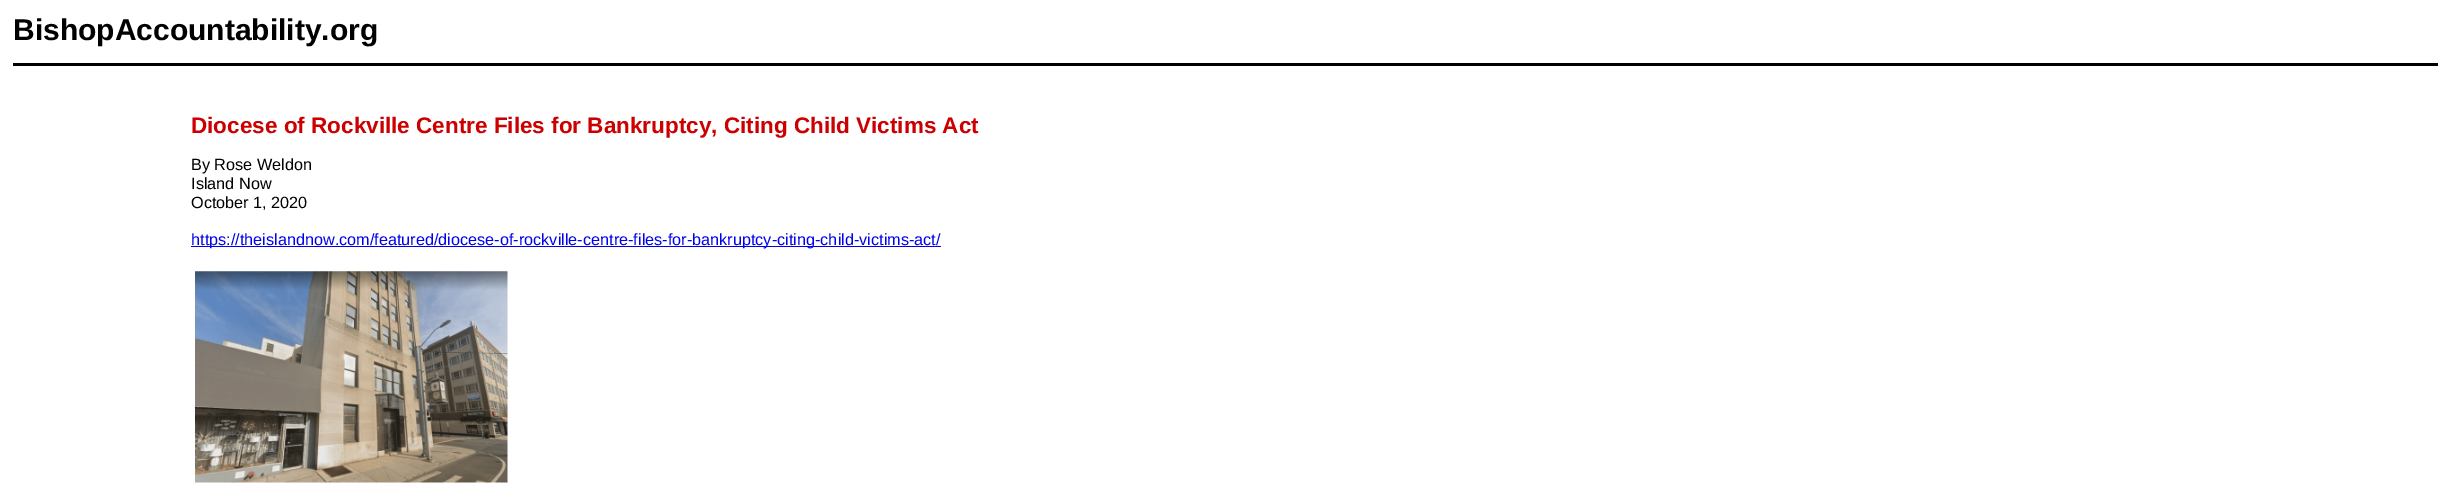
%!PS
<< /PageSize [2450 492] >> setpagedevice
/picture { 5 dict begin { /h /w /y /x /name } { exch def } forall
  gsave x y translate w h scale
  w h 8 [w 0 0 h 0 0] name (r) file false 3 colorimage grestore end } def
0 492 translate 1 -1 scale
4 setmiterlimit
1 setgray
0 0 2450 492 rectfill
/LiberationSans-Bold [30 0 0 -30 0 0] selectfont
0 setgray
13 40 moveto (BishopAccountability.org) show
13 63 2425 3 rectfill
/LiberationSans-Bold [22.5 0 0 -22.5 0 0] selectfont
0.8 0 0 setrgbcolor
191 133 moveto (Diocese of Rockville Centre Files for Bankruptcy, Citing Child Victims Act) show
/LiberationSans-Regular [16.25 0 0 -16.25 0 0] selectfont
0 setgray
191 170 moveto (By Rose Weldon) show
191 189 moveto (Island Now) show
191 208 moveto (October 1, 2020) show
0 0 0.933 setrgbcolor
191 246 750 1 rectfill
191 245 moveto (https://theislandnow.com/featured/diocese-of-rockville-centre-files-for-bankruptcy-citing-child-victims-act/) show
(img1.rgb) 195 271 313 212 picture
showpage
